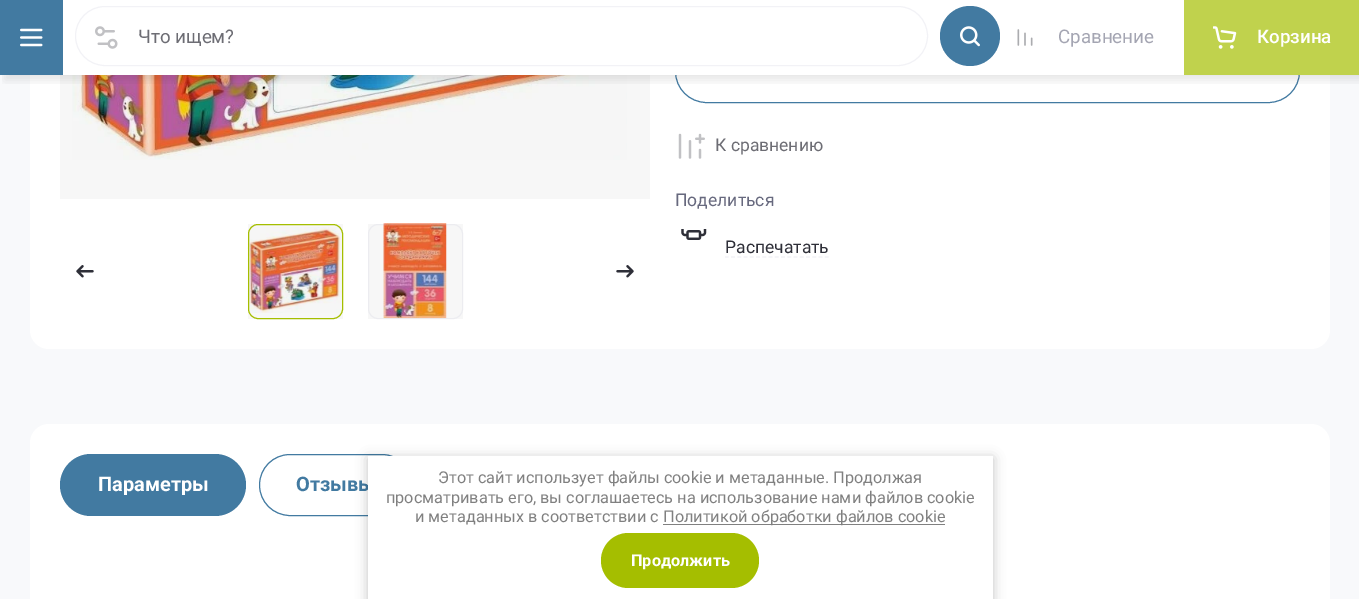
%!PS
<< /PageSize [1359 599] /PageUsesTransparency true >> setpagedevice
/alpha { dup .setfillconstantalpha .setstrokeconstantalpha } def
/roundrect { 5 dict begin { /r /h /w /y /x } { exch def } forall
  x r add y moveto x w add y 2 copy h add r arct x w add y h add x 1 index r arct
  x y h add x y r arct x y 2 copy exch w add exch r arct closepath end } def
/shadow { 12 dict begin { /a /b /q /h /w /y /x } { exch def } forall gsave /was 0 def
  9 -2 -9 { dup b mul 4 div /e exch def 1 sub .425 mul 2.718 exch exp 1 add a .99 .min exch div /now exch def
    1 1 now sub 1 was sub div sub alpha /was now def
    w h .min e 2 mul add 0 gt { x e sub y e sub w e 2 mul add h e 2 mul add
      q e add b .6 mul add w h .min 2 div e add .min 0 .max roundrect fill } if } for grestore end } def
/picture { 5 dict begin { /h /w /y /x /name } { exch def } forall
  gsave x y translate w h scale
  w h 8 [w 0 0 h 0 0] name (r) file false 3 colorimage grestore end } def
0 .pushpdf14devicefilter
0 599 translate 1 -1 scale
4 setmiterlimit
0.973 0.976 0.984 setrgbcolor
0 0 1359 599 rectfill
1 setgray
30 -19 1300 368 19 roundrect fill
0.259 0.478 0.631 setrgbcolor
675.5 40.5 624 62 31 roundrect stroke
1 setgray
675 40 509 35 rectfill
(img6.rgb) 72 75 555 85 picture
0.03 alpha
0 setgray
60 75 590 124 rectfill
gsave
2 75 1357 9 rectclip
1 alpha
5 5 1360 75 0 5 0.1 shadow
grestore
1 alpha
0.259 0.478 0.631 setrgbcolor
0 0 63 75 rectfill
(img1.rgb) 20 28 23 19 picture
0.949 0.949 0.965 setrgbcolor
75.5 6.5 852 59 29.5 roundrect stroke
(img2.rgb) 95 26 23 23 picture
/Roboto-Regular [18.75 0 0 -18.75 0 0] selectfont
0.427 0.427 0.455 setrgbcolor
138 43 moveto (Что ищем?) show
0.259 0.478 0.631 setrgbcolor
newpath 970 36 30 0 360 arc closepath fill
(img3.rgb) 960 26 20 21 picture
(img4.rgb) 1017 29 16 17 picture
0.643 0.647 0.698 setrgbcolor
1058 43 moveto (Сравнение) show
0.753 0.824 0.302 setrgbcolor
1184 0 175 75 rectfill
(img5.rgb) 1213 26 24 23 picture
/Roboto-Medium [18.75 0 0 -18.75 0 0] selectfont
1 setgray
1257 43 moveto (Корзина) show
(img7.rgb) 76 265 18 13 picture
(img8.rgb) 616 265 18 13 picture
(img9.rgb) 247 227 95 86 picture
0.03 alpha
0 setgray
248 224 95 95 rectfill
1 alpha
0.647 0.745 0 setrgbcolor
248.5 224.5 94 94 9.5 roundrect stroke
(img10.rgb) 383 223 64 96 picture
0.03 alpha
0 setgray
368 224 95 95 rectfill
0.3 alpha
0.824 0.827 0.878 setrgbcolor
368.5 224.5 94 94 9.5 roundrect stroke
1 alpha
(img11.rgb) 678 133 27 26 picture
/Roboto-Regular [17.5 0 0 -17.5 0 0] selectfont
0.427 0.427 0.455 setrgbcolor
715 151 moveto (К сравнению) show
0.404 0.412 0.494 setrgbcolor
675 206 moveto (Поделиться) show
(img12.rgb) 681 229 26 11 picture
0.18 0.184 0.22 setrgbcolor
725 253 moveto (Распечатать) show
0.949 0.949 0.965 setrgbcolor
1.2 setlinewidth
[3.75 2.5] 0 setdash
newpath 725 257 moveto 829 257 lineto stroke
1 setgray
30 424 1300 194 19 roundrect fill
0.259 0.478 0.631 setrgbcolor
60 454 186 62 31 roundrect fill
/Roboto-Bold [20 0 0 -20 0 0] selectfont
1 setgray
98 491 moveto (Параметры) show
0.259 0.478 0.631 setrgbcolor
1 setlinewidth
[] 0 setdash
259.5 454.5 153 61 30.5 roundrect stroke
296 491 moveto (Отзывы) show
0 setgray
368 458 625 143 0 6 0.23 shadow
1 setgray
368 456 625 143 rectfill
/Roboto-Regular [16.25 0 0 -16.25 0 0] selectfont
0.502 setgray
438 483 moveto (Этот сайт использует файлы cookie и метаданные. Продолжая) show
386 503 moveto (просматривать его, вы соглашаетесь на использование нами файлов cookie) show
415 522 moveto (и метаданных в соответствии с) show
663 524 282 1 rectfill
663 522 moveto (Политикой обработки файлов cookie) show
0.647 0.745 0 setrgbcolor
601 533 158 55 27.5 roundrect fill
/Roboto-Bold [16.25 0 0 -16.25 0 0] selectfont
1 setgray
631 566 moveto (Продолжить) show
.poppdf14devicefilter showpage
